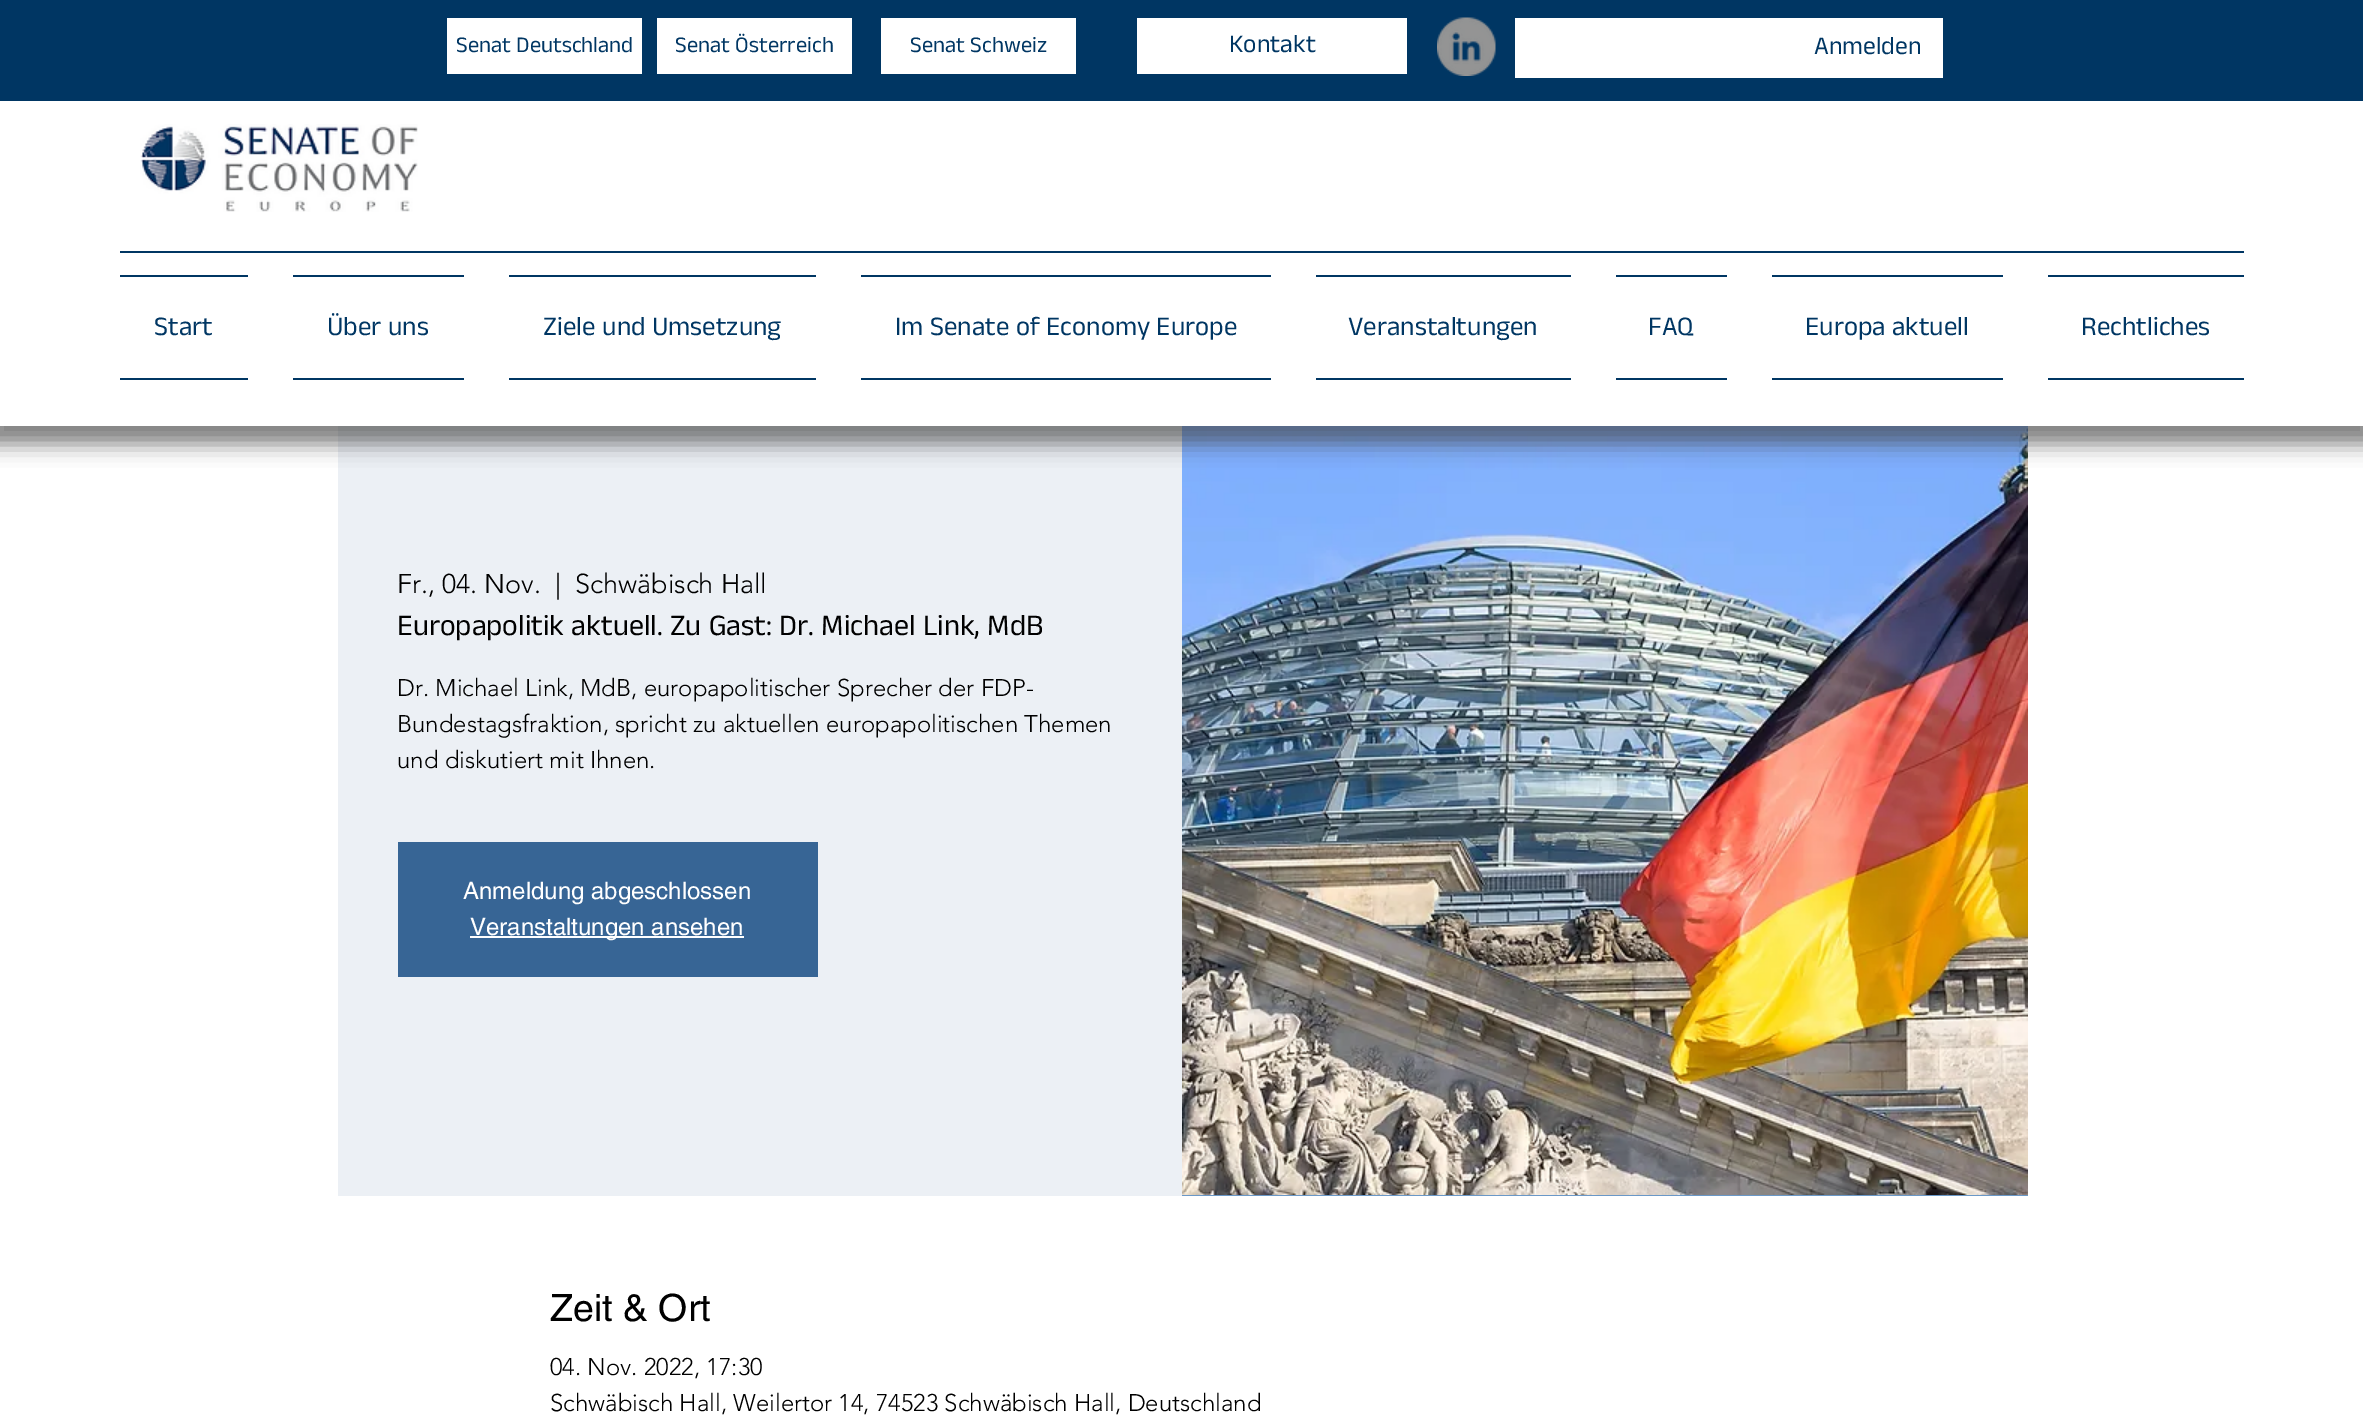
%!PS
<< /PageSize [2363 1427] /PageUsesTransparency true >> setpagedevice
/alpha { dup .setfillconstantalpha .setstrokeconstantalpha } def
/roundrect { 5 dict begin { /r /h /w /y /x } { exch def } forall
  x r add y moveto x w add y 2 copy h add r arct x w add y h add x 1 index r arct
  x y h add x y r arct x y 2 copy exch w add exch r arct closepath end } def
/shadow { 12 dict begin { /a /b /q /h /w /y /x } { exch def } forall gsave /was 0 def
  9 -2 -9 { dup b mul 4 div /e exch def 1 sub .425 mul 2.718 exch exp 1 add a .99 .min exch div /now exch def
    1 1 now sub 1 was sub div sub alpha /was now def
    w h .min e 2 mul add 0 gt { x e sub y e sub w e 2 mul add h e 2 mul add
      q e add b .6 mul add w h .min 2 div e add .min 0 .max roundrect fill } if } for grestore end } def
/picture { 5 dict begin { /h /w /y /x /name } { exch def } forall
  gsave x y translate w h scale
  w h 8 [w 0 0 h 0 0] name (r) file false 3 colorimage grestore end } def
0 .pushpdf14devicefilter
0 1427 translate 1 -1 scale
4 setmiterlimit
1 setgray
0 0 2363 1427 rectfill
0.925 0.941 0.961 setrgbcolor
338 426 844 770 rectfill
(img3.rgb) 1182 426 846 769 picture
0.263 setgray
-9 0 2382 444 0 10.5 0.68 shadow
1 setgray
0 101 2363 325 rectfill
0 0.212 0.388 setrgbcolor
0 0 2363 101 rectfill
1 setgray
447 18 195 56 rectfill
/AnekMalayalam-Medium [22.5 0 0 -22.5 0 0] selectfont
0 0.212 0.388 setrgbcolor
456 52 moveto (Senat Deutschland) show
1 setgray
657 18 195 56 rectfill
0 0.212 0.388 setrgbcolor
675 52 moveto (Senat Österreich) show
1 setgray
881 18 195 56 rectfill
0 0.212 0.388 setrgbcolor
910 52 moveto (Senat Schweiz) show
1 setgray
1137 18 270 56 rectfill
/AnekMalayalam-Medium [25.5 0 0 -25.5 0 0] selectfont
0 0.212 0.388 setrgbcolor
1229 52 moveto (Kontakt) show
(img1.rgb) 1437 17 59 59 picture
1 setgray
1515 18 428 60 rectfill
0 0.212 0.388 setrgbcolor
1814 54 moveto (Anmelden) show
(img2.rgb) 140 124 278 88 picture
120 251 2124 2 rectfill
120 275 128 2 rectfill
120 378 128 2 rectfill
/AnekMalayalam-Medium [27 0 0 -27 0 0] selectfont
154 335 moveto (Start) show
293 275 171 2 rectfill
293 378 171 2 rectfill
327 335 moveto (Über uns) show
509 275 307 2 rectfill
509 378 307 2 rectfill
543 335 moveto (Ziele und Umsetzung) show
861 275 410 2 rectfill
861 378 410 2 rectfill
895 335 moveto (Im Senate of Economy Europe) show
1316 275 255 2 rectfill
1316 378 255 2 rectfill
1348 335 moveto (Veranstaltungen) show
1616 275 111 2 rectfill
1616 378 111 2 rectfill
1648 335 moveto (FAQ) show
1772 275 231 2 rectfill
1772 378 231 2 rectfill
1805 335 moveto (Europa aktuell) show
2048 275 196 2 rectfill
2048 378 196 2 rectfill
2081 335 moveto (Rechtliches) show
/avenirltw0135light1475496-Light [27 0 0 -27 0 0] selectfont
0 setgray
397 593 moveto (Fr., 04. Nov.) show
555 593 moveto (|) show
575 593 moveto (Schwäbisch Hall) show
/AnekMalayalam-Medium [30 0 0 -30 0 0] selectfont
397 635 moveto (Europapolitik aktuell. Zu Gast: Dr. Michael Link, MdB) show
/avenirltw0135light1475496-Light [24 0 0 -24 0 0] selectfont
397 696 moveto (Dr. Michael Link, MdB, europapolitischer Sprecher der FDP-) show
397 732 moveto (Bundestagsfraktion, spricht zu aktuellen europapolitischen Themen) show
397 768 moveto (und diskutiert mit Ihnen.) show
0.216 0.396 0.584 setrgbcolor
398 842 420 135 rectfill
/helvetica-Regular [24 0 0 -24 0 0] selectfont
1 setgray
463 899 moveto (Anmeldung abgeschlossen) show
470 936 274 2 rectfill
470 935 moveto (Veranstaltungen ansehen) show
0.416 0.596 0.784 setrgbcolor
1182 1195 846 1 rectfill
/helvetica-Regular [37.5 0 0 -37.5 0 0] selectfont
0 setgray
550 1321 moveto (Zeit & Ort) show
/avenirltw0135light1475496-Light [24 0 0 -24 0 0] selectfont
550 1375 moveto (04. Nov. 2022, 17:30) show
550 1411 moveto (Schwäbisch Hall, Weilertor 14, 74523 Schwäbisch Hall, Deutschland) show
.poppdf14devicefilter showpage
